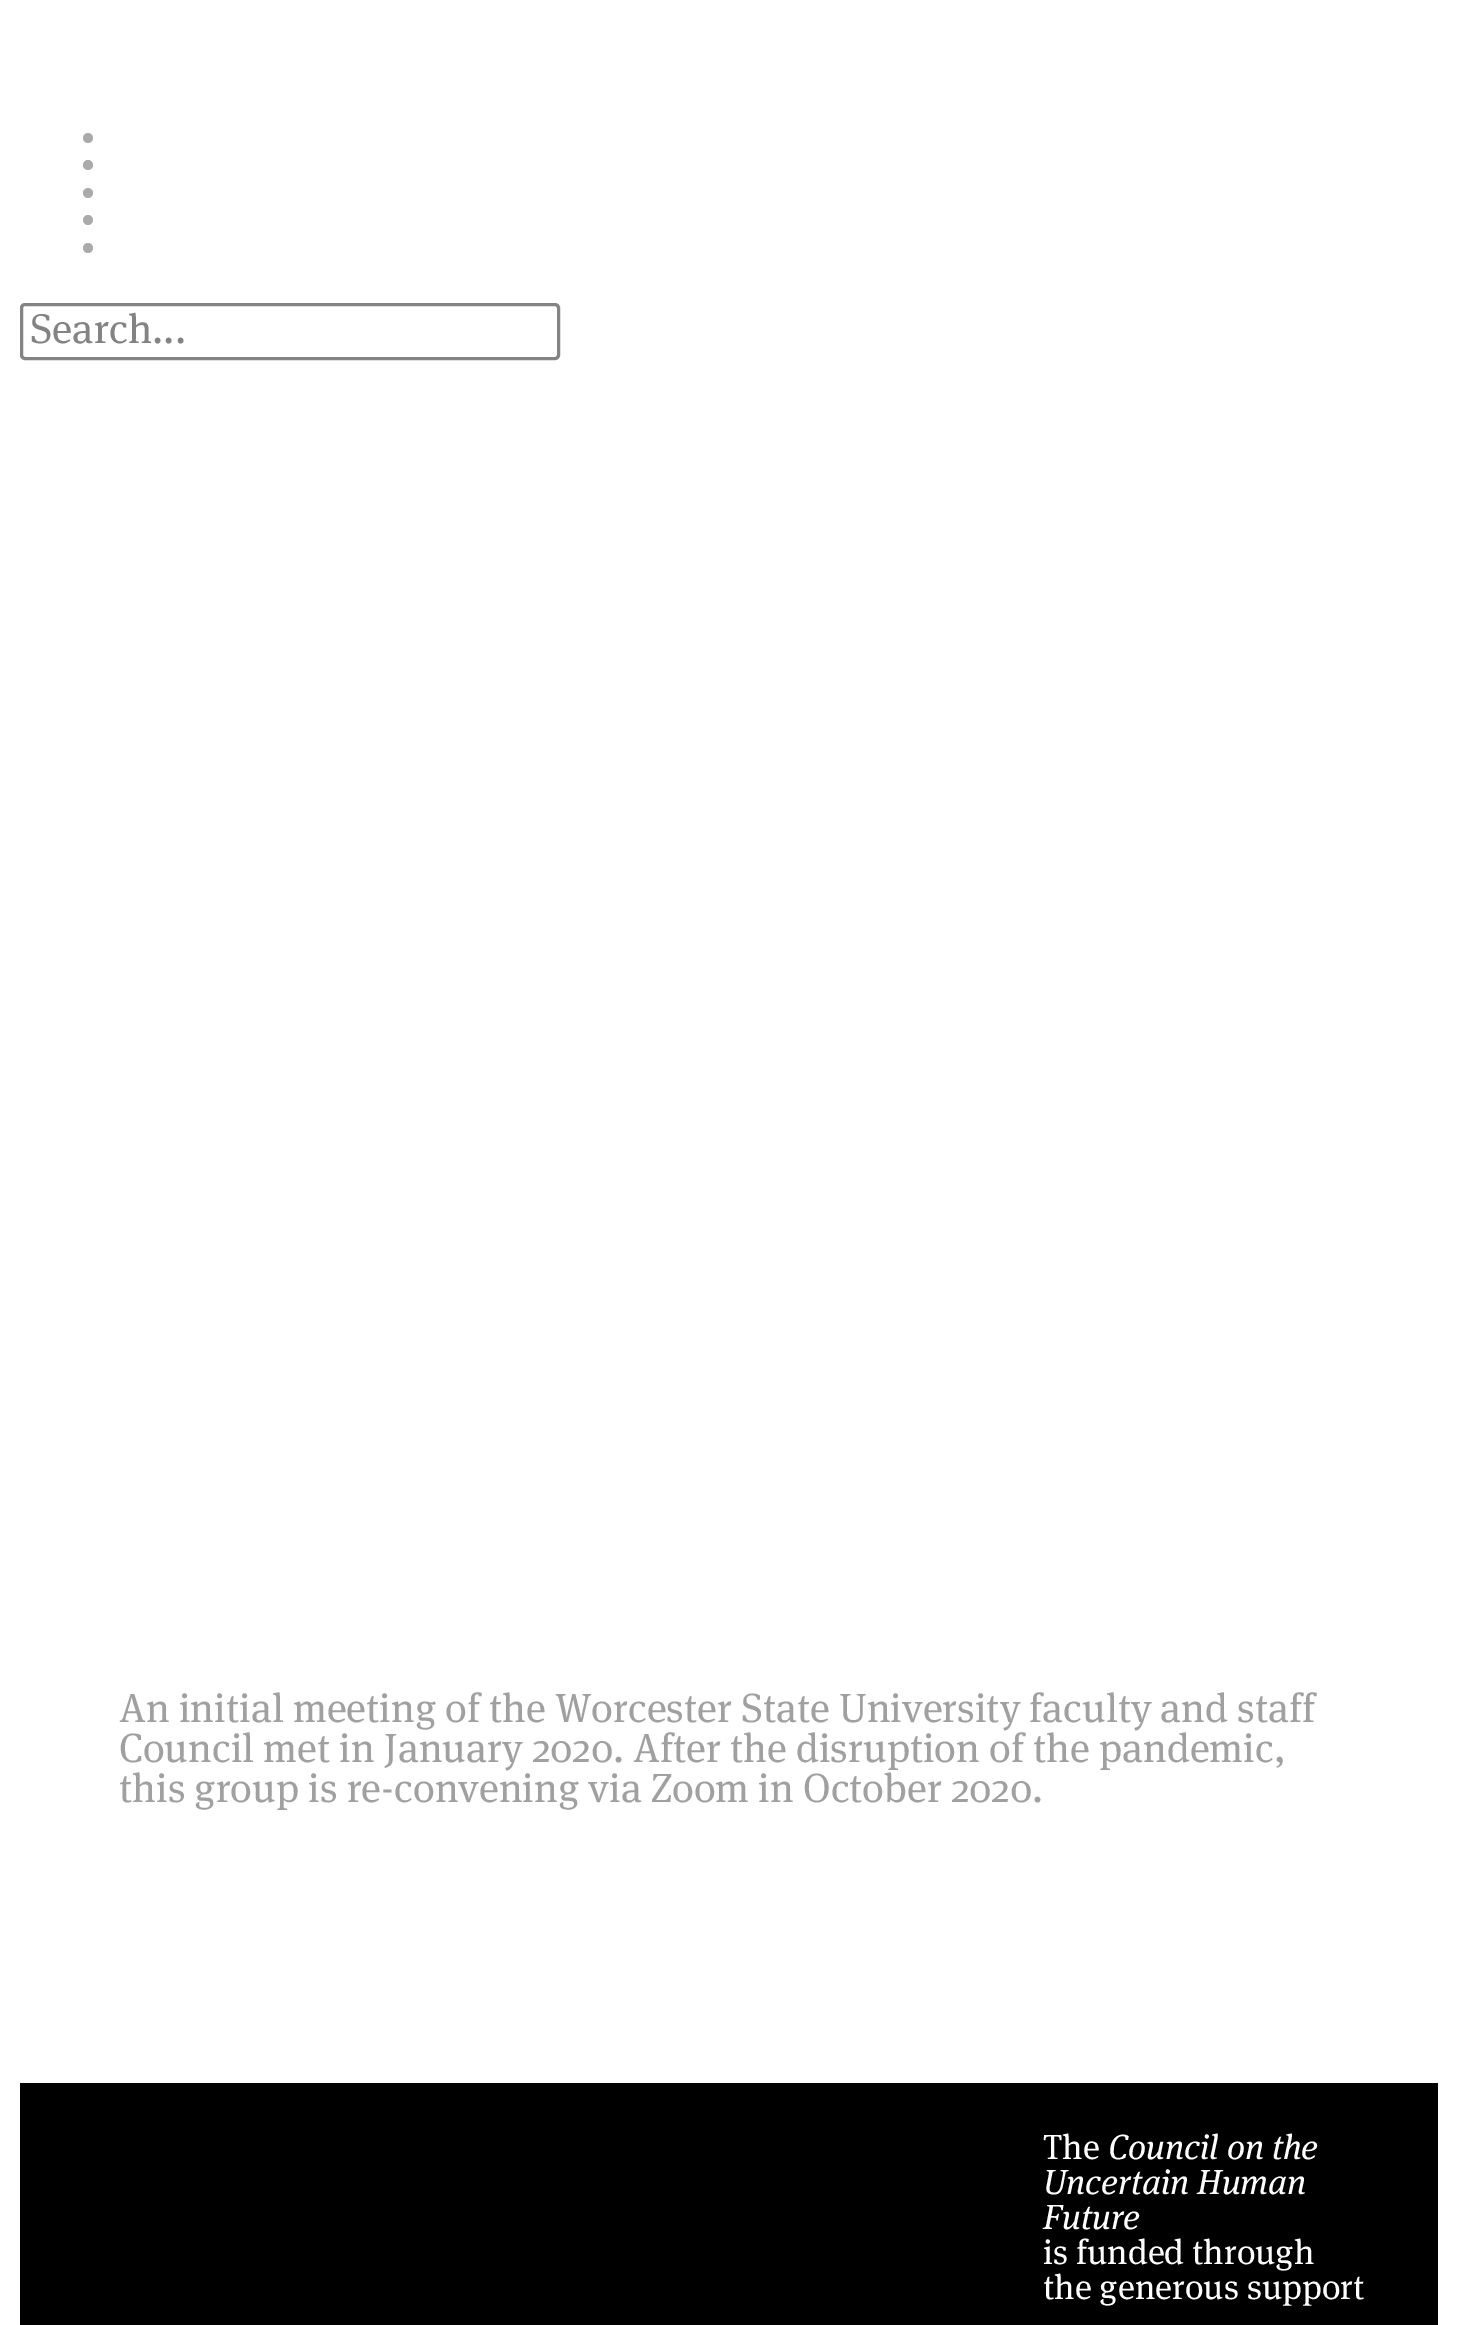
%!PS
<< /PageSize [1457 2325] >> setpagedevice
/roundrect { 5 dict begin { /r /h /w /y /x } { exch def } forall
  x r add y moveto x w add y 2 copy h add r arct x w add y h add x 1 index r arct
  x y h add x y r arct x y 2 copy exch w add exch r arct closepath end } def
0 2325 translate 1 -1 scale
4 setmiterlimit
1 setgray
0 0 1457 2325 rectfill
0.667 setgray
newpath 88 138 5 0 360 arc closepath fill
newpath 88 165 5 0 360 arc closepath fill
newpath 88 193 5 0 360 arc closepath fill
newpath 88 220 5 0 360 arc closepath fill
newpath 88 248 5 0 360 arc closepath fill
0.518 setgray
3 setlinewidth
21.5 304.5 537 54 3.5 roundrect stroke
/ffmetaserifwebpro-Medium [41.5 0 0 -41.5 0 0] selectfont
0.514 setgray
30 343 moveto (Search...) show
/ffmetaserifwebpro-Medium [40.8 0 0 -40.8 0 0] selectfont
0.627 setgray
119 1722 moveto (An initial meeting of the Worcester State University faculty and staff) show
119 1762 moveto (Council met in January 2020. After the disruption of the pandemic,) show
119 1802 moveto (this group is re-convening via Zoom in October 2020.) show
0 setgray
20 2083 1418 242 rectfill
/ffmetaserifwebpro-Medium [35 0 0 -35 0 0] selectfont
1 setgray
1043 2159 moveto (The) show
/ffmetaserifwebpro-MediumItalic [35 0 0 -35 0 0] selectfont
1108 2159 moveto (Council on the) show
1043 2194 moveto (Uncertain Human) show
1043 2229 moveto (Future) show
/ffmetaserifwebpro-Medium [35 0 0 -35 0 0] selectfont
1043 2264 moveto (is funded through) show
1043 2299 moveto (the generous support) show
showpage
